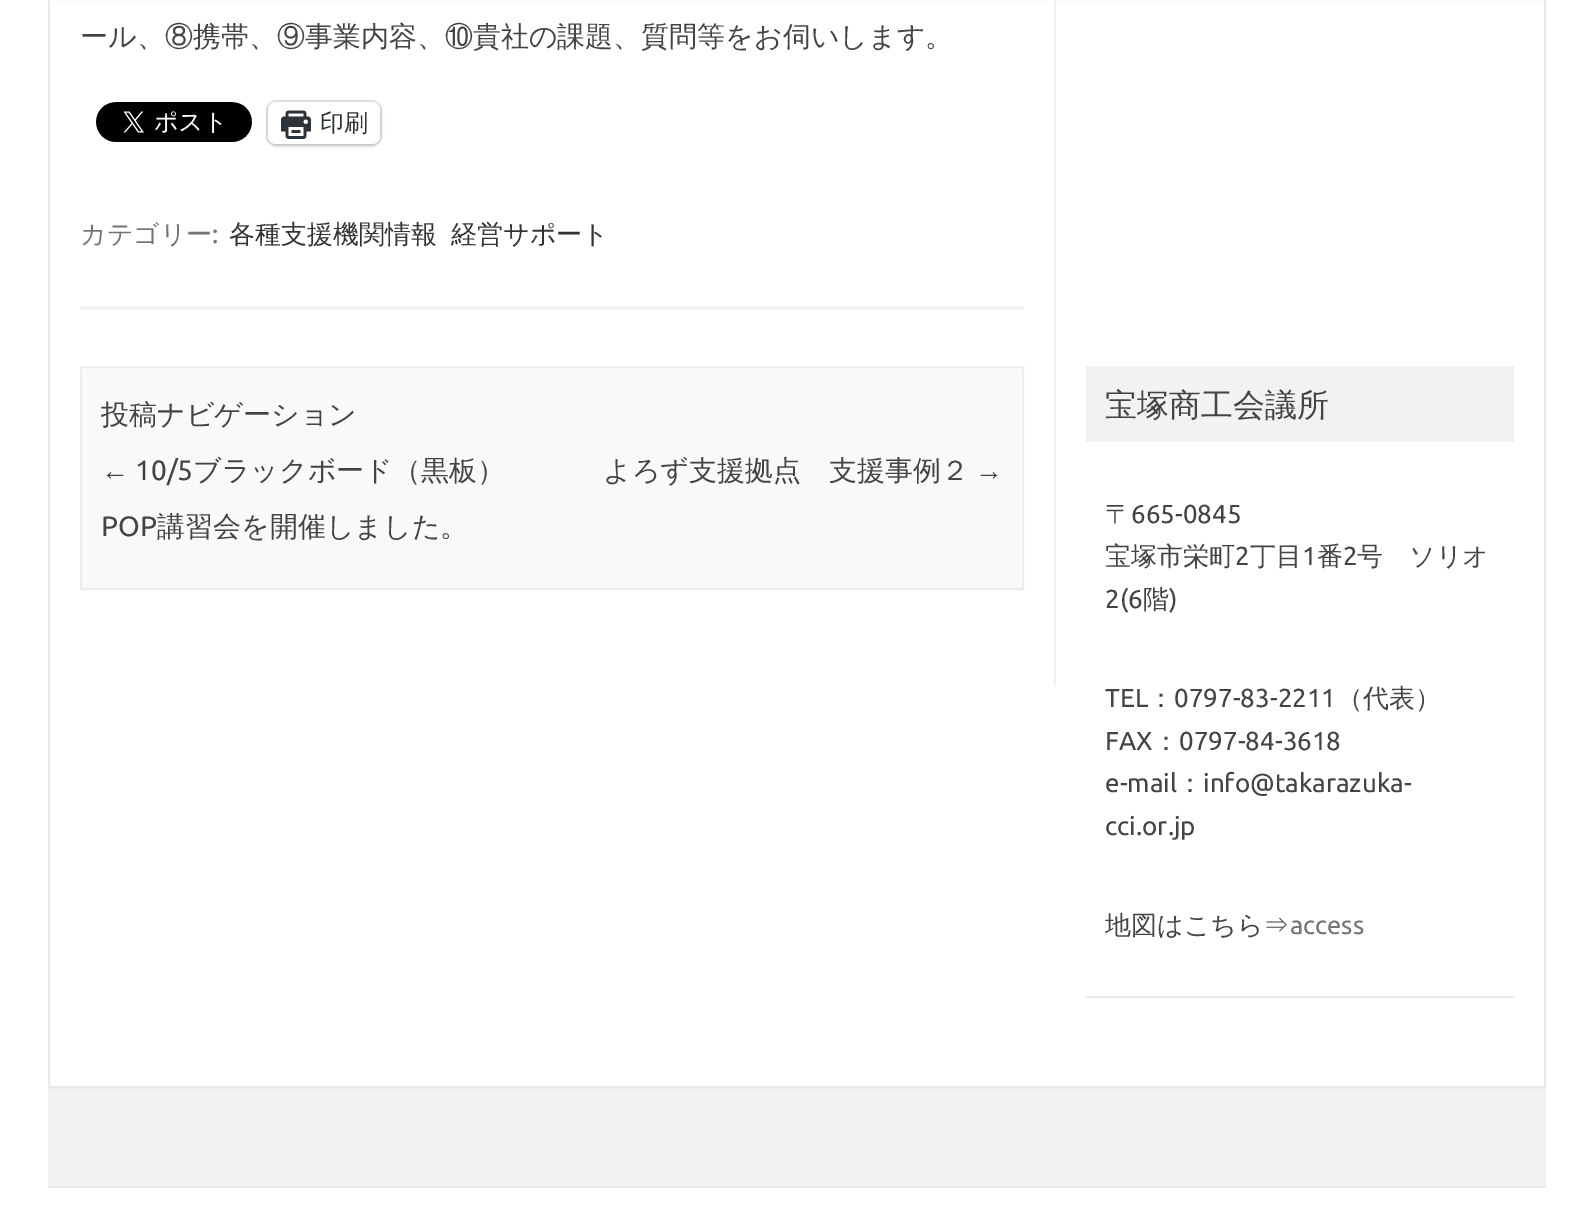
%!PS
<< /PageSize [1594 1217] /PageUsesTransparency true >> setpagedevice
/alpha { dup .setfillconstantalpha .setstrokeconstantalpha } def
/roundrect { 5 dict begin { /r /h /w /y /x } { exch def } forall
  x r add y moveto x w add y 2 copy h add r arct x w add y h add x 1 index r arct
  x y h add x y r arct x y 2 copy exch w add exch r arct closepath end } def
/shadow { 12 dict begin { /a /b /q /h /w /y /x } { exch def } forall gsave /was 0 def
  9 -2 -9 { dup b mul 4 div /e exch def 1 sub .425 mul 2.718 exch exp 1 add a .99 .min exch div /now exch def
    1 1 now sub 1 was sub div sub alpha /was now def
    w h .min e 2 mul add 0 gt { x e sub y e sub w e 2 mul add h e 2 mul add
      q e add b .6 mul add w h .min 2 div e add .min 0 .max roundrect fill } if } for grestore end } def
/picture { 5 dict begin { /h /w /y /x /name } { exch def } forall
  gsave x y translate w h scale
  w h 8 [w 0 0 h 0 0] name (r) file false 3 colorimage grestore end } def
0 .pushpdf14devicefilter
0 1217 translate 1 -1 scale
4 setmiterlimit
1 setgray
0 0 1594 1217 rectfill
0.914 setgray
2 setlinewidth
49 -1 1496 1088 rectstroke
0.945 setgray
1054 0 2 686 rectfill
0.953 setgray
80 306 944 4 rectfill
/WenQuanYiZenHei-Medium [28 0 0 -28 0 0] selectfont
0.267 setgray
80 46 moveto (ール、⑧携帯、⑨事業内容、⑩貴社の課題、質問等をお伺いします。) show
(img1.rgb) 96 102 156 40 picture
0.878 setgray
267 101 114 44 9 roundrect stroke
0 setgray
268 104 112 42 8 2 0.12 shadow
1 setgray
268 102 112 42 8 roundrect fill
(img2.rgb) 281 110 30 29 picture
/WenQuanYiZenHei-Medium [24 0 0 -24 0 0] selectfont
0.173 0.2 0.22 setrgbcolor
320 131 moveto (印刷) show
/WenQuanYiZenHei-Medium [26 0 0 -26 0 0] selectfont
0.459 setgray
80 243 moveto (カテゴリー) show
/Ubuntu-Regular [26 0 0 -26 0 0] selectfont
212 243 moveto (:) show
/WenQuanYiZenHei-Medium [26 0 0 -26 0 0] selectfont
0.2 setgray
229 243 moveto (各種支援機関情報) show
451 243 moveto (経営サポート) show
0.976 setgray
newpath 81 367 moveto 1023 367 lineto 1023 589 lineto 81 589 lineto closepath gsave fill grestore
0.929 setgray
stroke
/WenQuanYiZenHei-Medium [28 0 0 -28 0 0] selectfont
0.267 setgray
101 424 moveto (投稿ナビゲーション) show
/LiberationSans-Regular [28 0 0 -28 0 0] selectfont
101 480 moveto (←) show
/Ubuntu-Regular [28 0 0 -28 0 0] selectfont
135 480 moveto (10/5) show
/WenQuanYiZenHei-Medium [28 0 0 -28 0 0] selectfont
193 480 moveto (ブラックボード（黒板）) show
/Ubuntu-Regular [28 0 0 -28 0 0] selectfont
101 536 moveto (POP) show
/WenQuanYiZenHei-Medium [28 0 0 -28 0 0] selectfont
157 536 moveto (講習会を開催しました。) show
603 480 moveto (よろず支援拠点　支援事例２) show
/LiberationSans-Regular [28 0 0 -28 0 0] selectfont
975 480 moveto (→) show
0.949 setgray
1086 366 428 76 rectfill
/WenQuanYiZenHei-Medium [32 0 0 -32 0 0] selectfont
0.267 setgray
1105 416 moveto (宝塚商工会議所) show
0.914 setgray
1086 996 428 2 rectfill
/WenQuanYiZenHei-Medium [26 0 0 -26 0 0] selectfont
0.267 setgray
1105 523 moveto (〒) show
/Ubuntu-Regular [26 0 0 -26 0 0] selectfont
1131 523 moveto (665-0845) show
/WenQuanYiZenHei-Medium [26 0 0 -26 0 0] selectfont
1105 565 moveto (宝塚市栄町) show
/Ubuntu-Regular [26 0 0 -26 0 0] selectfont
1235 565 moveto (2) show
/WenQuanYiZenHei-Medium [26 0 0 -26 0 0] selectfont
1250 565 moveto (丁目) show
/Ubuntu-Regular [26 0 0 -26 0 0] selectfont
1302 565 moveto (1) show
/WenQuanYiZenHei-Medium [26 0 0 -26 0 0] selectfont
1317 565 moveto (番) show
/Ubuntu-Regular [26 0 0 -26 0 0] selectfont
1343 565 moveto (2) show
/WenQuanYiZenHei-Medium [26 0 0 -26 0 0] selectfont
1357 565 moveto (号　ソリオ) show
/Ubuntu-Regular [26 0 0 -26 0 0] selectfont
1105 608 moveto (2\(6) show
/WenQuanYiZenHei-Medium [26 0 0 -26 0 0] selectfont
1143 608 moveto (階) show
/Ubuntu-Regular [26 0 0 -26 0 0] selectfont
1169 608 moveto (\)) show
1105 707 moveto (TEL) show
/WenQuanYiZenHei-Medium [26 0 0 -26 0 0] selectfont
1148 707 moveto (：) show
/Ubuntu-Regular [26 0 0 -26 0 0] selectfont
1174 707 moveto (0797-83-2211) show
/WenQuanYiZenHei-Medium [26 0 0 -26 0 0] selectfont
1337 707 moveto (（代表）) show
/Ubuntu-Regular [26 0 0 -26 0 0] selectfont
1105 750 moveto (FAX) show
/WenQuanYiZenHei-Medium [26 0 0 -26 0 0] selectfont
1153 750 moveto (：) show
/Ubuntu-Regular [26 0 0 -26 0 0] selectfont
1179 750 moveto (0797-84-3618) show
1105 792 moveto (e-mail) show
/WenQuanYiZenHei-Medium [26 0 0 -26 0 0] selectfont
1177 792 moveto (：) show
/Ubuntu-Regular [26 0 0 -26 0 0] selectfont
1203 792 moveto (info@takarazuka-) show
1105 835 moveto (cci.or.jp) show
/WenQuanYiZenHei-Medium [26 0 0 -26 0 0] selectfont
1105 934 moveto (地図はこちら⇒) show
/Ubuntu-Regular [25.5 0 0 -25.5 0 0] selectfont
0.459 setgray
1290 934 moveto (access) show
0.949 setgray
48 1090 1498 96 rectfill
0.929 setgray
48 1088 1498 2 rectfill
0.914 setgray
48 1186 1498 2 rectfill
.poppdf14devicefilter showpage
